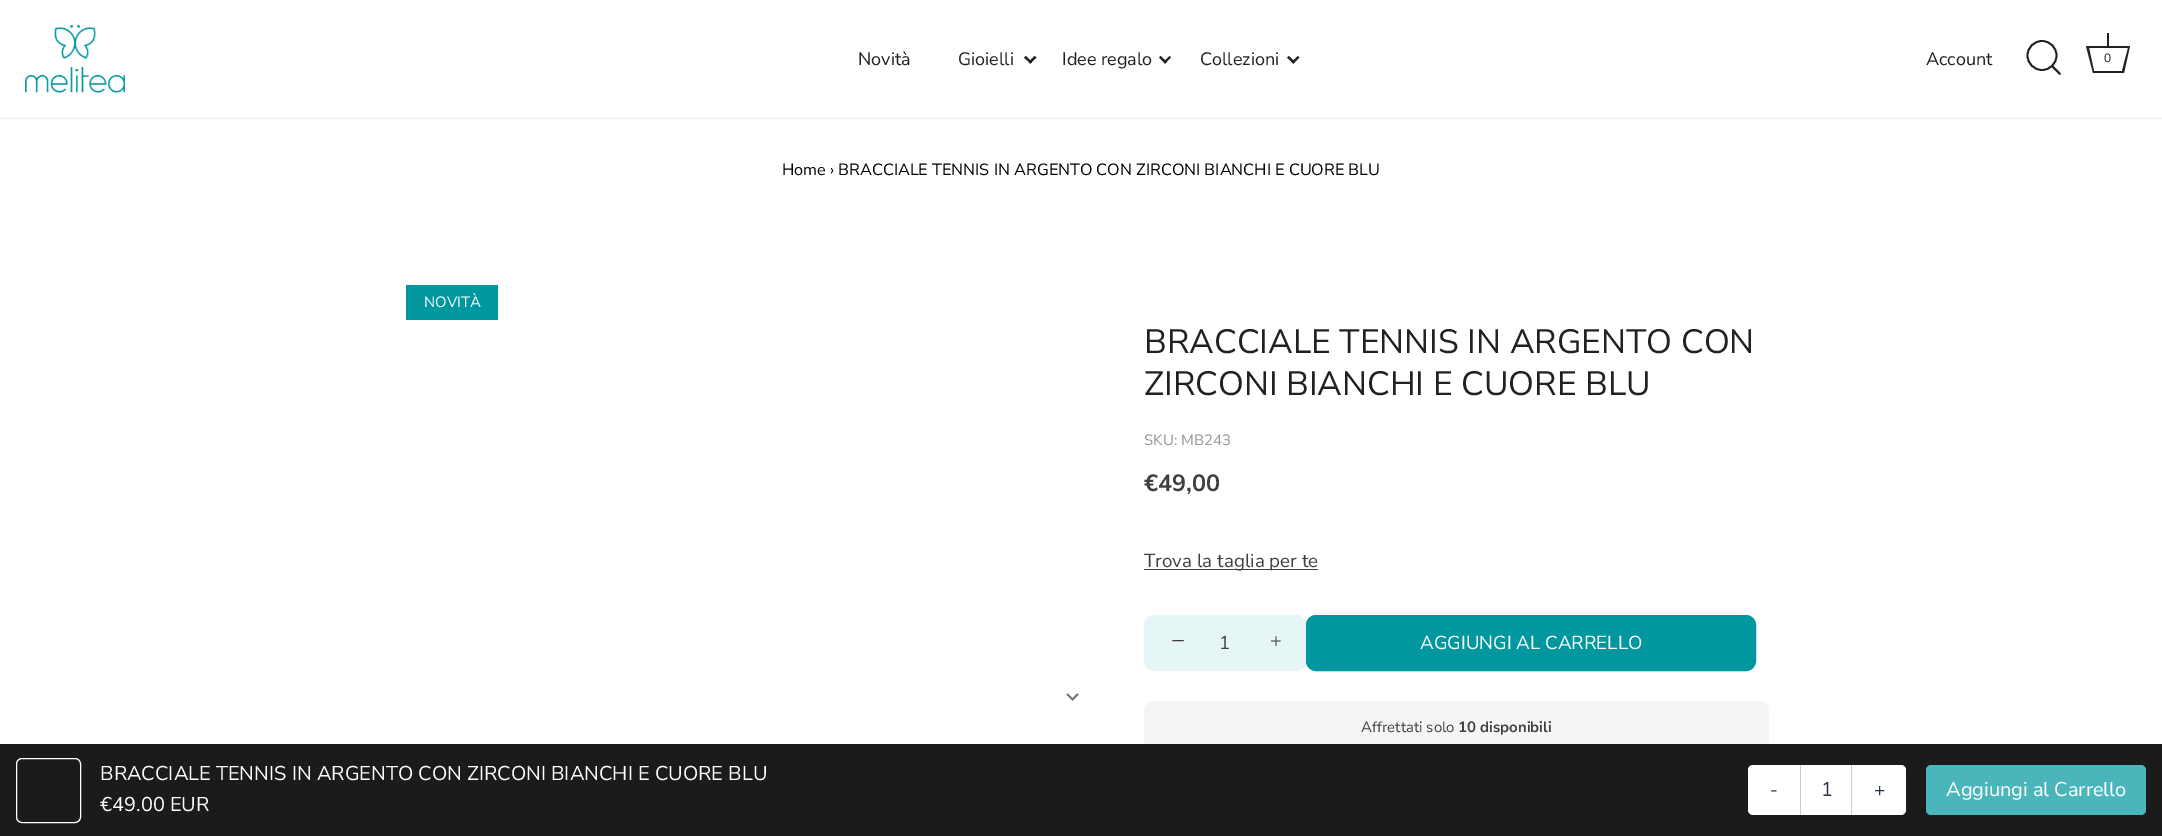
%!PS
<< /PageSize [2162 836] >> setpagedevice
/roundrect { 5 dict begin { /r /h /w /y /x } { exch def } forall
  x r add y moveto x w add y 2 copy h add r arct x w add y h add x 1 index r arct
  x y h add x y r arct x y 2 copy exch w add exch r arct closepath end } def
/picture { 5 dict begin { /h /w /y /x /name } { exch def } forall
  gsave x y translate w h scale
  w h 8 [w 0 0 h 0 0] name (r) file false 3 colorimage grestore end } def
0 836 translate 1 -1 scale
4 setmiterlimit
1 setgray
0 0 2162 836 rectfill
0.929 setgray
0 118 2162 1 rectfill
(img1.rgb) 25 25 100 68 picture
/NunitoSans-Regular [18 0 0 -18 0 0] selectfont
0.129 setgray
858 65 moveto (Novità) show
958 65 moveto (Gioielli) show
newpath 1034.5 56 moveto 1036.5 57.5 lineto 1030.5 63.5 lineto 1028.5 62 lineto closepath fill
newpath 1026 56 moveto 1032 62 lineto 1030.5 63.5 lineto 1024 57.5 lineto closepath fill
1062 65 moveto (Idee regalo) show
newpath 1169.5 56 moveto 1171 57.5 lineto 1165 63.5 lineto 1163.5 62 lineto closepath fill
newpath 1160.5 56 moveto 1167 62 lineto 1165 63.5 lineto 1159 57.5 lineto closepath fill
1200 65 moveto (Collezioni) show
newpath 1298 56 moveto 1299.5 57.5 lineto 1293.5 63.5 lineto 1291.5 62 lineto closepath fill
newpath 1289 56 moveto 1295 62 lineto 1293.5 63.5 lineto 1287 57.5 lineto closepath fill
1926 65 moveto (Account) show
1.8 setlinewidth
newpath 2042 55.5 14.5 0 360 arc closepath stroke
1 setlinecap
1 setlinejoin
newpath 2060 74 moveto 2052 66 lineto stroke
2107 33 2 13 rectfill
newpath 2128 48 moveto 2122 71 lineto 2094 71 lineto 2089 48 lineto 2128 48 lineto 2130 46 moveto 2086 46 lineto 2093 73 lineto 2124 73 lineto closepath fill
/NunitoSans-Regular [12 0 0 -12 0 0] selectfont
2104 62 moveto (0) show
/NunitoSans-Regular [16.25 0 0 -16.25 0 0] selectfont
0 setgray
782 175 moveto (Home) show
830 175 moveto (›) show
838 175 moveto (BRACCIALE TENNIS IN ARGENTO CON ZIRCONI BIANCHI E CUORE BLU) show
0 0.592 0.62 setrgbcolor
406 285 92 35 rectfill
/NunitoSans-Regular [15 0 0 -15 0 0] selectfont
1 setgray
424 307 moveto (NOVITÀ) show
(img2.rgb) 1066 693 13 8 picture
/NunitoSans-Regular [33.75 0 0 -33.75 0 0] selectfont
0.129 setgray
1144 353 moveto (BRACCIALE TENNIS IN ARGENTO CON) show
1144 395 moveto (ZIRCONI BIANCHI E CUORE BLU) show
/NunitoSans-Regular [15 0 0 -15 0 0] selectfont
0.588 setgray
1144 445 moveto (SKU: MB243) show
/NunitoSans-Bold [23.5 0 0 -23.5 0 0] selectfont
0.259 0.247 0.247 setrgbcolor
1144 491 moveto (€49,00) show
1144 569 174 1 rectfill
/NunitoSans-Regular [18.75 0 0 -18.75 0 0] selectfont
1144 567 moveto (Trova la taglia per te) show
0.902 0.961 0.961 setrgbcolor
1144 615 162 56 10 roundrect fill
/LiberationSerif-Regular [25 0 0 -25 0 0] selectfont
0.259 0.247 0.247 setrgbcolor
1171 649 moveto (−) show
/NunitoSans-Regular [18.75 0 0 -18.75 0 0] selectfont
1219 649 moveto 1 0 (1) ashow
/LiberationSerif-Regular [21 0 0 -21 0 0] selectfont
1270 648 moveto (+) show
0 0.592 0.62 setrgbcolor
1306.5 615.5 449 55 9.5 roundrect gsave fill grestore
1 setlinewidth
0 setlinecap
0 setlinejoin
stroke
/NunitoSans-Regular [18.75 0 0 -18.75 0 0] selectfont
1 setgray
1420 649 moveto (AGGIUNGI AL CARRELLO) show
0.961 setgray
1144 701 625 82 10 roundrect fill
/NunitoSans-Regular [15 0 0 -15 0 0] selectfont
0.259 0.247 0.247 setrgbcolor
1361 732 moveto (Affrettati solo) show
/NunitoSans-Bold [15 0 0 -15 0 0] selectfont
1458 732 moveto (10 disponibili) show
0.106 setgray
0 744 2162 92 rectfill
1 setgray
16.5 758.5 64 64 5.5 roundrect stroke
/NunitoSans-Regular [20 0 0 -20 0 0] selectfont
100 780 moveto (BRACCIALE TENNIS IN ARGENTO CON ZIRCONI BIANCHI E CUORE BLU) show
100 811 moveto (€49.00 EUR) show
1748 765 158 50 5 roundrect fill
/NunitoSans-Regular [18.75 0 0 -18.75 0 0] selectfont
0.176 0.208 0.235 setrgbcolor
1770 796 moveto (-) show
0.8 setgray
1800 765 1 50 rectfill
/NunitoSans-Regular [20 0 0 -20 0 0] selectfont
0.149 0.212 0.267 setrgbcolor
1821 796 moveto (1) show
0.8 setgray
1851 765 1 50 rectfill
/NunitoSans-Regular [18.75 0 0 -18.75 0 0] selectfont
0.149 0.212 0.267 setrgbcolor
1874 796 moveto (+) show
0.29 0.71 0.729 setrgbcolor
1926 765 220 50 5 roundrect fill
/NunitoSans-Regular [20 0 0 -20 0 0] selectfont
1 setgray
1946 796 moveto (Aggiungi al Carrello) show
showpage
